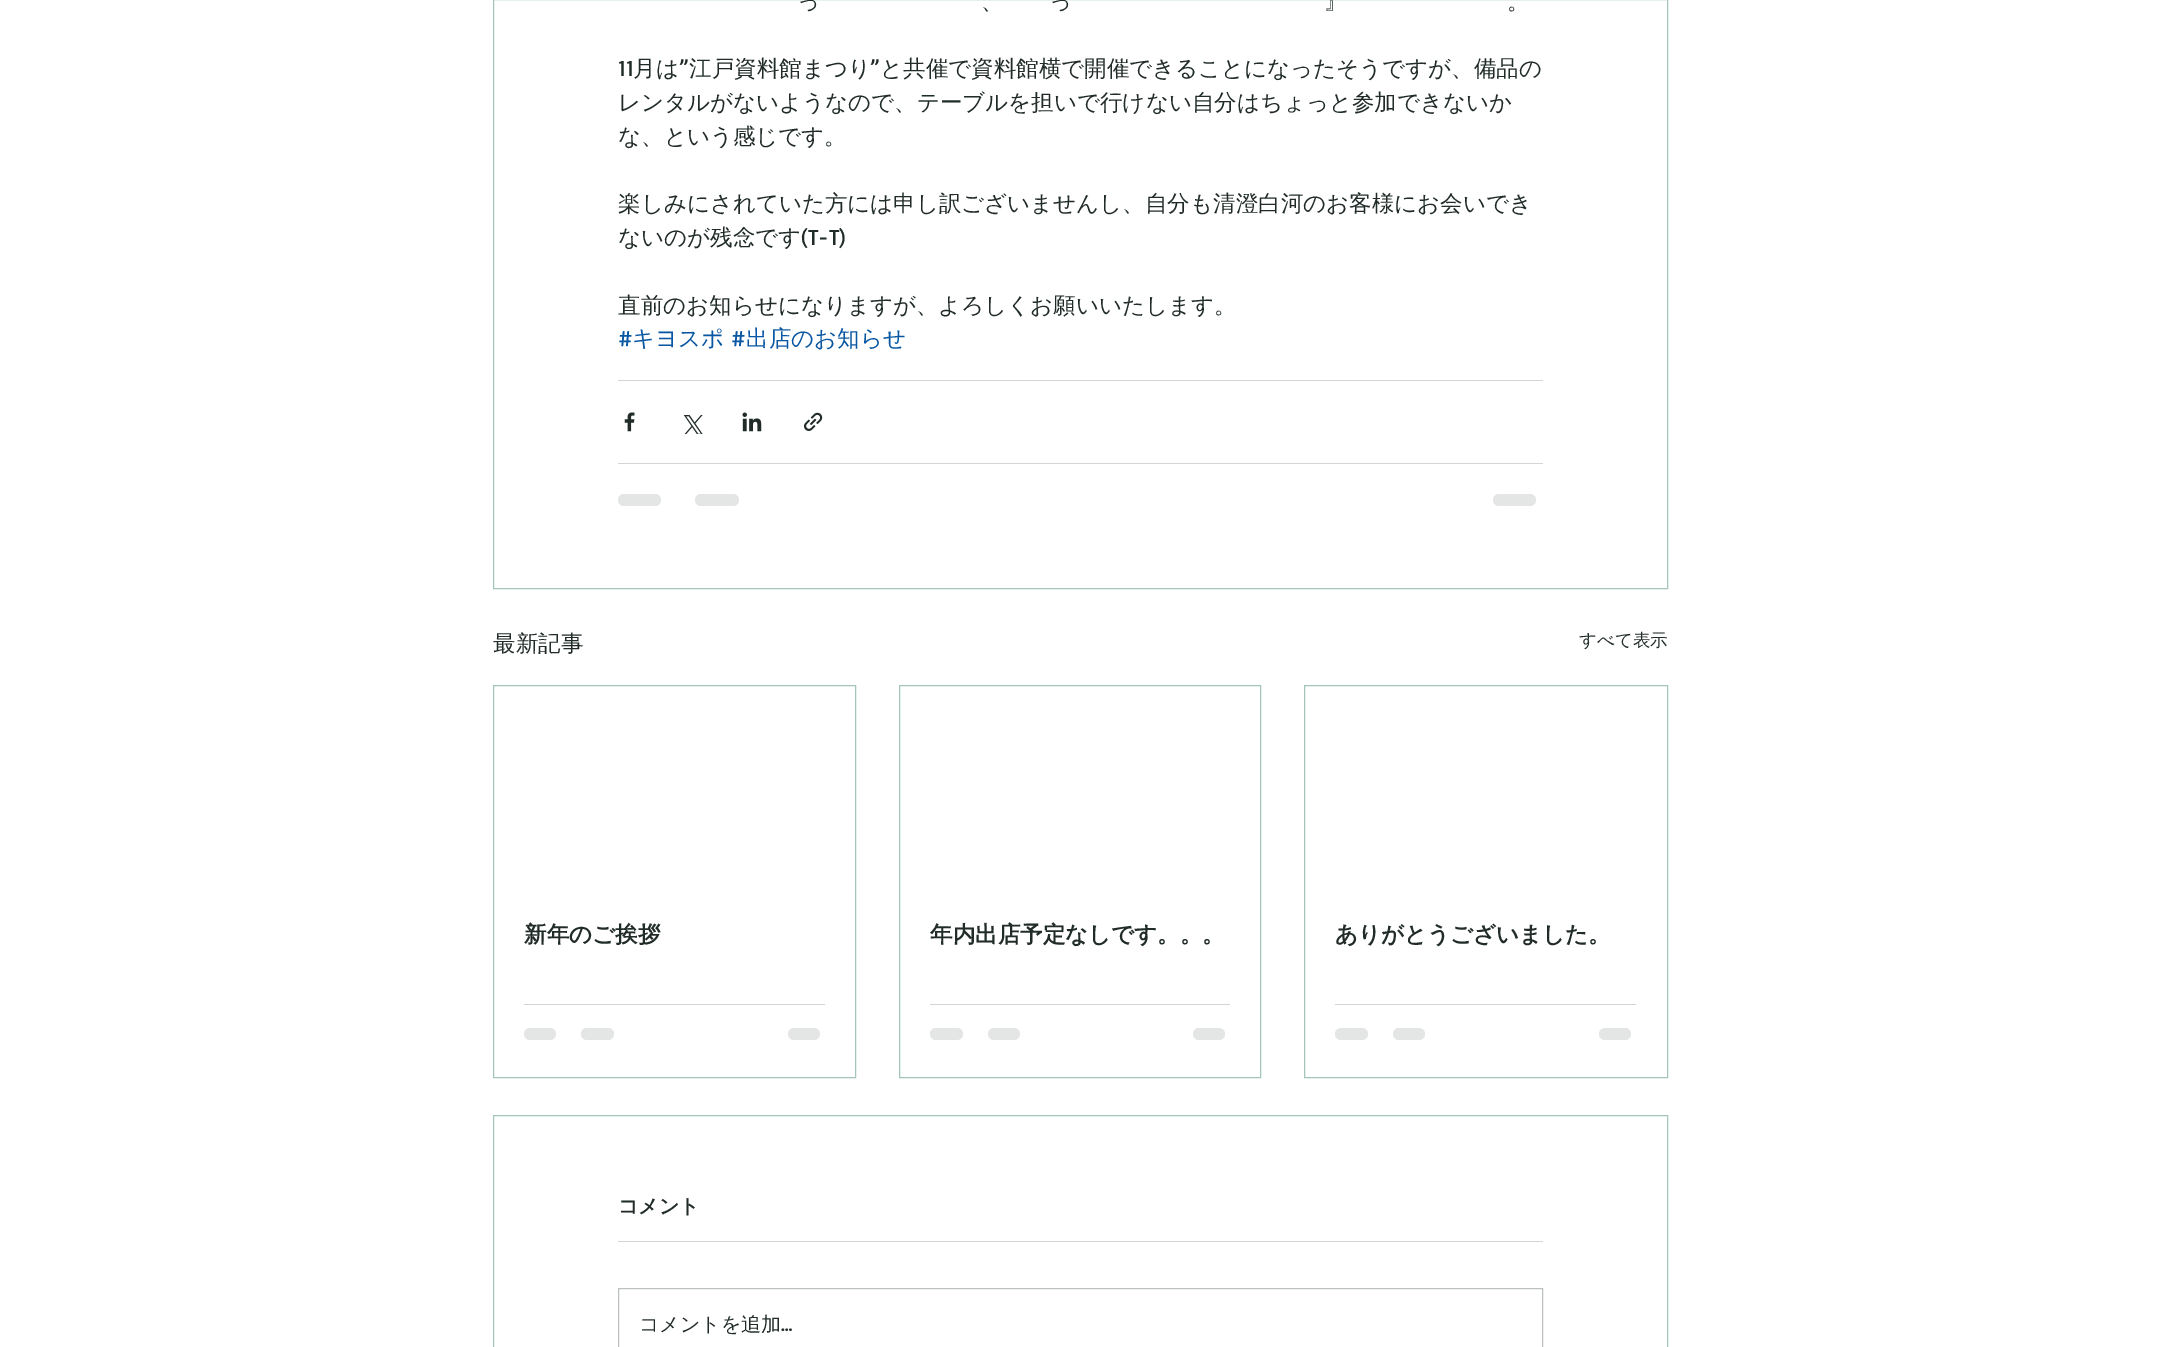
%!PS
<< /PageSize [2160 1347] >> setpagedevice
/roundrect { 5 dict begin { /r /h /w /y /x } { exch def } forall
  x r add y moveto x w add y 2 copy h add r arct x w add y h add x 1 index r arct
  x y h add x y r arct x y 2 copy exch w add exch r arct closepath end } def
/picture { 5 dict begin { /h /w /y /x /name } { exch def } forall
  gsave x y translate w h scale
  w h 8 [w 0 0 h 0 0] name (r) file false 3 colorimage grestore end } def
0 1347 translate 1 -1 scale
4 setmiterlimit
1 setgray
0 0 2160 1347 rectfill
0.643 0.773 0.733 setrgbcolor
493.5 -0.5 1174 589 rectstroke
/WenQuanYiZenHei-Medium [22.5 0 0 -22.5 0 0] selectfont
0.129 0.173 0.161 setrgbcolor
797 9 moveto (っ) show
981 9 moveto (、) show
1049 9 moveto (っ) show
1324 9 moveto (』) show
1507 9 moveto (。) show
/Basic-Regular [22.5 0 0 -22.5 0 0] selectfont
618 76 moveto (11) show
/WenQuanYiZenHei-Medium [22.5 0 0 -22.5 0 0] selectfont
633 76 moveto (月は) show
/Basic-Regular [22.5 0 0 -22.5 0 0] selectfont
679 76 moveto (”) show
/WenQuanYiZenHei-Medium [22.5 0 0 -22.5 0 0] selectfont
689 76 moveto (江戸資料館まつり) show
/Basic-Regular [22.5 0 0 -22.5 0 0] selectfont
870 76 moveto (”) show
/WenQuanYiZenHei-Medium [22.5 0 0 -22.5 0 0] selectfont
880 76 moveto (と共催で資料館横で開催できることになったそうですが、備品の) show
618 110 moveto (レンタルがないようなので、テーブルを担いで行けない自分はちょっと参加できないか) show
618 144 moveto (な、という感じです。) show
618 211 moveto (楽しみにされていた方には申し訳ございませんし、自分も清澄白河のお客様にお会いでき) show
618 245 moveto (ないのが残念です) show
/Basic-Regular [22.5 0 0 -22.5 0 0] selectfont
801 245 moveto (\(T-T\)) show
/WenQuanYiZenHei-Medium [22.5 0 0 -22.5 0 0] selectfont
618 313 moveto (直前のお知らせになりますが、よろしくお願いいたします。) show
/Basic-Regular [22.5 0 0 -22.5 0 0] selectfont
0.035 0.341 0.635 setrgbcolor
618 346 moveto (#) show
/WenQuanYiZenHei-Medium [22.5 0 0 -22.5 0 0] selectfont
632 346 moveto (キヨスポ) show
/Basic-Regular [22.5 0 0 -22.5 0 0] selectfont
731 346 moveto (#) show
/WenQuanYiZenHei-Medium [22.5 0 0 -22.5 0 0] selectfont
746 346 moveto (出店のお知らせ) show
0.827 0.835 0.831 setrgbcolor
618 380 925 1 rectfill
(img1.rgb) 624 412 11 20 picture
(img2.rgb) 683 415 20 19 picture
(img3.rgb) 742 412 20 20 picture
(img4.rgb) 804 412 19 19 picture
618 463 925 1 rectfill
0.894 0.902 0.898 setrgbcolor
618 494 43 12 6 roundrect fill
695 494 44 12 6 roundrect fill
1493 494 43 12 6 roundrect fill
0.129 0.173 0.161 setrgbcolor
493 651 moveto (最新記事) show
/WenQuanYiZenHei-Medium [17.5 0 0 -17.5 0 0] selectfont
1579 646 moveto (すべて表示) show
0.643 0.773 0.733 setrgbcolor
493.5 685.5 362 392 rectstroke
/WenQuanYiZenHei-Bold [22.5 0 0 -22.5 0 0] selectfont
0.129 0.173 0.161 setrgbcolor
524 942 moveto (新年のご挨拶) show
0.827 0.835 0.831 setrgbcolor
524 1004 301 1 rectfill
0.894 0.902 0.898 setrgbcolor
524 1028 32 12 6 roundrect fill
581 1028 33 12 6 roundrect fill
788 1028 32 12 6 roundrect fill
0.643 0.773 0.733 setrgbcolor
899.5 685.5 361 392 rectstroke
0.129 0.173 0.161 setrgbcolor
930 942 moveto (年内出店予定なしです。。。) show
0.827 0.835 0.831 setrgbcolor
930 1004 300 1 rectfill
0.894 0.902 0.898 setrgbcolor
930 1028 33 12 6 roundrect fill
988 1028 32 12 6 roundrect fill
1193 1028 32 12 6 roundrect fill
0.643 0.773 0.733 setrgbcolor
1304.5 685.5 363 392 rectstroke
0.129 0.173 0.161 setrgbcolor
1335 942 moveto (ありがとうございました。) show
0.827 0.835 0.831 setrgbcolor
1335 1004 301 1 rectfill
0.894 0.902 0.898 setrgbcolor
1335 1028 33 12 6 roundrect fill
1393 1028 32 12 6 roundrect fill
1599 1028 32 12 6 roundrect fill
0.643 0.773 0.733 setrgbcolor
493.5 1115.5 1174 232 rectstroke
/WenQuanYiZenHei-Bold [20 0 0 -20 0 0] selectfont
0.129 0.173 0.161 setrgbcolor
618 1213 moveto (コメント) show
0.827 0.835 0.831 setrgbcolor
618 1241 925 1 rectfill
0.737 0.753 0.749 setrgbcolor
618.5 1288.5 924 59 rectstroke
/WenQuanYiZenHei-Medium [20 0 0 -20 0 0] selectfont
0.129 0.173 0.161 setrgbcolor
639 1331 moveto (コメントを追加) show
/Basic-Regular [20 0 0 -20 0 0] selectfont
781 1331 moveto (…) show
showpage
